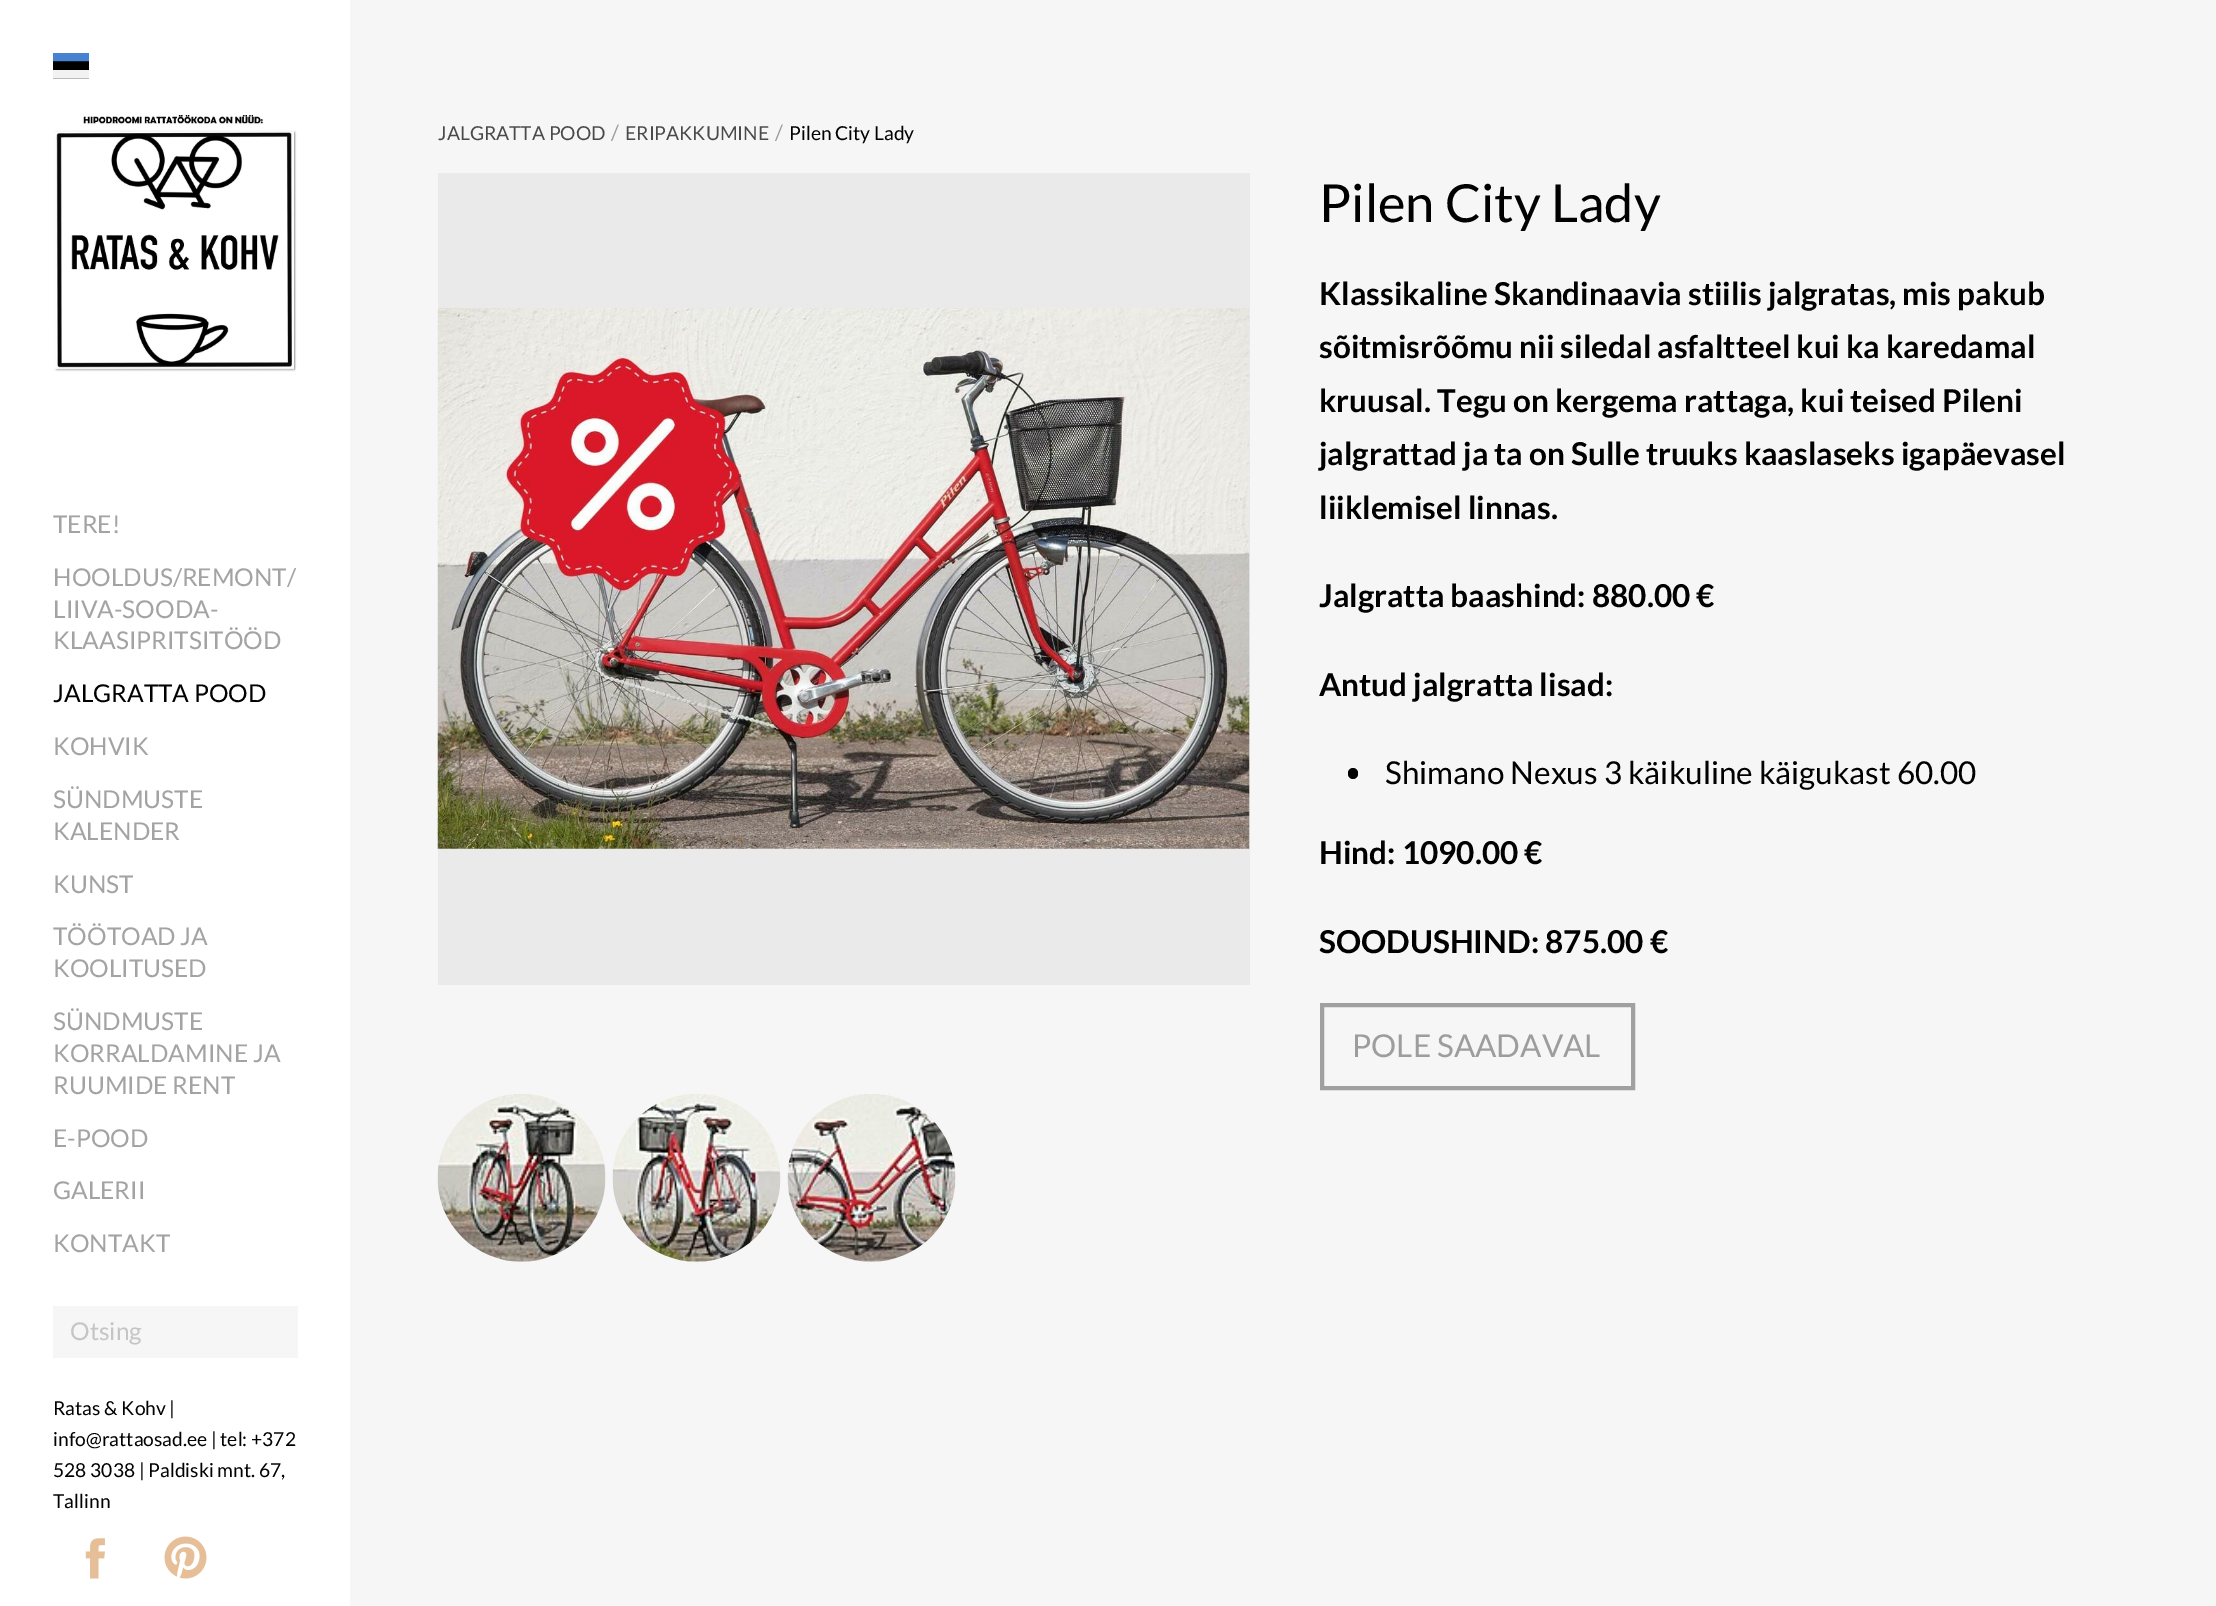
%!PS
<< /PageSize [2216 1606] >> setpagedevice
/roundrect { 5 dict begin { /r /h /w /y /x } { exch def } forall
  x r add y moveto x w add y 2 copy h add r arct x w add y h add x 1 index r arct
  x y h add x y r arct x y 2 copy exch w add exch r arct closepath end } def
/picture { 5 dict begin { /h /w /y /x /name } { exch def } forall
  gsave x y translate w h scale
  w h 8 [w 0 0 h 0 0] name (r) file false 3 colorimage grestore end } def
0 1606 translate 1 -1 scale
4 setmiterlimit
1 setgray
0 0 2216 1606 rectfill
(img1.rgb) 53 53 36 26 picture
0.965 setgray
350 0 1866 1606 rectfill
/Lato-Regular [19.25 0 0 -19.25 0 0] selectfont
0.29 setgray
438 140 moveto (JALGRATTA POOD) show
/Lato-Regular [21 0 0 -21 0 0] selectfont
0.616 setgray
611 140 moveto (/) show
/Lato-Regular [19.25 0 0 -19.25 0 0] selectfont
0.29 setgray
625 140 moveto (ERIPAKKUMINE) show
/Lato-Regular [21 0 0 -21 0 0] selectfont
0.616 setgray
775 140 moveto (/) show
/Lato-Regular [19.25 0 0 -19.25 0 0] selectfont
0 setgray
789 140 moveto (Pilen City Lady) show
0.918 setgray
438 173 812 812 rectfill
(img2.rgb) 437 308 813 541 picture
(img3.rgb) 437 1094 169 168 picture
(img4.rgb) 612 1094 169 168 picture
(img5.rgb) 787 1094 169 168 picture
/Lato-Regular [52.5 0 0 -52.5 0 0] selectfont
0 setgray
1319 222 moveto (Pilen City Lady) show
/Lato-Bold [31.5 0 0 -31.5 0 0] selectfont
1319 305 moveto (Klassikaline Skandinaavia stiilis jalgratas, mis pakub) show
1319 358 moveto (sõitmisrõõmu nii siledal asfaltteel kui ka karedamal) show
1319 412 moveto (kruusal. Tegu on kergema rattaga, kui teised Pileni) show
1319 465 moveto (jalgrattad ja ta on Sulle truuks kaaslaseks igapäevasel) show
1319 519 moveto (liiklemisel linnas.) show
1319 607 moveto (Jalgratta baashind: 880.00 €) show
1319 696 moveto (Antud jalgratta lisad:) show
1348 768 10 11 5 roundrect fill
/Lato-Regular [31.5 0 0 -31.5 0 0] selectfont
1385 784 moveto (Shimano Nexus 3 käikuline käigukast 60.00) show
/Lato-Bold [31.5 0 0 -31.5 0 0] selectfont
1319 864 moveto (Hind: 1090.00 €) show
1319 953 moveto (SOODUSHIND: 875.00 €) show
0.627 setgray
4 setlinewidth
1322 1005 311 83 rectstroke
/Lato-Regular [31.5 0 0 -31.5 0 0] selectfont
0.616 setgray
1352 1057 moveto (POLE SAADAVAL) show
0.965 setgray
53 1306 245 52 rectfill
/Lato-Regular [24.5 0 0 -24.5 0 0] selectfont
0.773 setgray
70 1340 moveto (Otsing) show
/Lato-Regular [19.25 0 0 -19.25 0 0] selectfont
0 setgray
53 1415 moveto (Ratas & Kohv |) show
53 1446 moveto (info@rattaosad.ee | tel: +372) show
53 1477 moveto (528 3038 | Paldiski mnt. 67,) show
53 1508 moveto (Tallinn) show
(img6.rgb) 85 1538 20 41 picture
(img7.rgb) 164 1536 43 43 picture
(img8.rgb) 54 114 243 258 picture
/Lato-Regular [24.5 0 0 -24.5 0 0] selectfont
0.639 setgray
53 533 moveto (TERE!) show
53 586 moveto (HOOLDUS/REMONT/) show
53 618 moveto (LIIVA-SOODA-) show
53 649 moveto (KLAASIPRITSITÖÖD) show
0 setgray
53 702 moveto (JALGRATTA POOD) show
0.639 setgray
53 755 moveto (KOHVIK) show
53 808 moveto (SÜNDMUSTE) show
53 840 moveto (KALENDER) show
53 893 moveto (KUNST) show
53 945 moveto (TÖÖTOAD JA) show
53 977 moveto (KOOLITUSED) show
53 1030 moveto (SÜNDMUSTE) show
53 1062 moveto (KORRALDAMINE JA) show
53 1094 moveto (RUUMIDE RENT) show
53 1147 moveto (E-POOD) show
53 1199 moveto (GALERII) show
53 1252 moveto (KONTAKT) show
showpage
